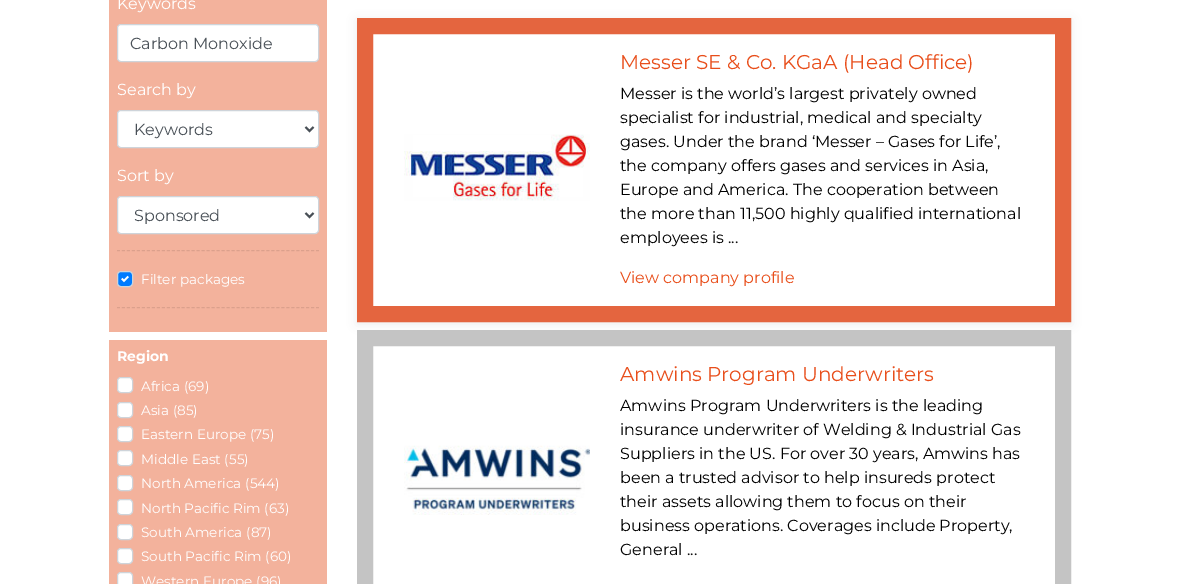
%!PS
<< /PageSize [1179 584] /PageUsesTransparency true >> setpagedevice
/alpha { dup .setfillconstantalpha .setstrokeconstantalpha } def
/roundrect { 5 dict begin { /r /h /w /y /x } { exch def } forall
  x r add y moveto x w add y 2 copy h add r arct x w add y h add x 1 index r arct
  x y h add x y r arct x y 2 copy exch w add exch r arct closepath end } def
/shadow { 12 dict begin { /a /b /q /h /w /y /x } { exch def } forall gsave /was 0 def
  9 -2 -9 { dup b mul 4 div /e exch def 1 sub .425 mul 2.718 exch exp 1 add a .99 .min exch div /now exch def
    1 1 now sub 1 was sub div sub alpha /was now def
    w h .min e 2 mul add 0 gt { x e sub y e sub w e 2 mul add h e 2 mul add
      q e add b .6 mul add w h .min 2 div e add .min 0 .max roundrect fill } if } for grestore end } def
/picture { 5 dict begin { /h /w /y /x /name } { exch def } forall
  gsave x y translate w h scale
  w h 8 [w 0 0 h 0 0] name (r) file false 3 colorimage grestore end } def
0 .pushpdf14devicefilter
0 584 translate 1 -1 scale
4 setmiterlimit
1 setgray
0 0 1179 584 rectfill
0.953 0.698 0.612 setrgbcolor
109 0 218 332 rectfill
/Montserrat-Regular [16 0 0 -16 0 0] selectfont
1 setgray
117 9 moveto (Keywords) show
117.5 24.5 201 37 3.5 roundrect gsave fill grestore
0.808 0.831 0.855 setrgbcolor
stroke
0.286 0.314 0.341 setrgbcolor
130 49 moveto (Carbon Monoxide) show
1 setgray
117 95 moveto (Search by) show
117.5 110.5 201 37 3.5 roundrect gsave fill grestore
0.808 0.831 0.855 setrgbcolor
stroke
0.286 0.314 0.341 setrgbcolor
2 setlinewidth
newpath 305.5 127 moveto 309.5 131 lineto 313.5 127 lineto stroke
134 135 moveto (Keywords) show
1 setgray
117 181 moveto (Sort by) show
117.5 196.5 201 37 3.5 roundrect gsave fill grestore
0.808 0.831 0.855 setrgbcolor
1 setlinewidth
stroke
0.286 0.314 0.341 setrgbcolor
2 setlinewidth
newpath 305.5 213 moveto 309.5 217 lineto 313.5 213 lineto stroke
134 221 moveto (Sponsored) show
0.859 0.627 0.549 setrgbcolor
1 setlinewidth
[3 1.98] 0 setdash
newpath 117 250.5 moveto 319 250.5 lineto stroke
0 0.482 1 setrgbcolor
117.5 271.5 15 15 3.5 roundrect gsave fill grestore
0.808 0.831 0.855 setrgbcolor
[] 0 setdash
stroke
/Montserrat-Regular [13.6 0 0 -13.6 0 0] selectfont
1 setgray
141 284 moveto (Filter packages) show
(img1.rgb) 121 275 8 8 picture
0.859 0.627 0.549 setrgbcolor
[3 1.98] 0 setdash
newpath 117 307.5 moveto 319 307.5 lineto stroke
0.953 0.698 0.612 setrgbcolor
109 340 218 244 rectfill
/Montserrat-Bold [14 0 0 -14 0 0] selectfont
1 setgray
117 361 moveto (Region) show
117.5 377.5 15 15 3.5 roundrect gsave fill grestore
0.808 0.831 0.855 setrgbcolor
[] 0 setdash
stroke
/Montserrat-Regular [13.6 0 0 -13.6 0 0] selectfont
1 setgray
141 391 moveto (Africa \(69\)) show
117.5 402.5 15 15 3.5 roundrect gsave fill grestore
0.808 0.831 0.855 setrgbcolor
stroke
1 setgray
141 415 moveto (Asia \(85\)) show
117.5 426.5 15 15 3.5 roundrect gsave fill grestore
0.808 0.831 0.855 setrgbcolor
stroke
1 setgray
141 439 moveto (Eastern Europe \(75\)) show
117.5 450.5 15 15 3.5 roundrect gsave fill grestore
0.808 0.831 0.855 setrgbcolor
stroke
1 setgray
141 464 moveto (Middle East \(55\)) show
117.5 475.5 15 15 3.5 roundrect gsave fill grestore
0.808 0.831 0.855 setrgbcolor
stroke
1 setgray
141 488 moveto (North America \(544\)) show
117.5 499.5 15 15 3.5 roundrect gsave fill grestore
0.808 0.831 0.855 setrgbcolor
stroke
1 setgray
141 513 moveto (North Pacific Rim \(63\)) show
117.5 524.5 15 15 3.5 roundrect gsave fill grestore
0.808 0.831 0.855 setrgbcolor
stroke
1 setgray
141 537 moveto (South America \(87\)) show
117.5 548.5 15 15 3.5 roundrect gsave fill grestore
0.808 0.831 0.855 setrgbcolor
stroke
1 setgray
141 561 moveto (South Pacific Rim \(60\)) show
117.5 572.5 15 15 3.5 roundrect gsave fill grestore
0.808 0.831 0.855 setrgbcolor
stroke
1 setgray
141 586 moveto (Western Europe \(96\)) show
gsave
newpath 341 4 moveto 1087 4 lineto 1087 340 lineto 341 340 lineto closepath 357 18 moveto 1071 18 lineto 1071 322 lineto 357 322 lineto closepath eoclip newpath
0 setgray
357 20 714 304 0 5 0.07 shadow
grestore
0.894 0.396 0.247 setrgbcolor
16 setlinewidth
365 26 698 288 rectstroke
(img2.rgb) 404 134 186 67 picture
/Montserrat-Regular [20 0 0 -20 0 0] selectfont
0.91 0.306 0.106 setrgbcolor
620 69 moveto (Messer SE & Co. KGaA \(Head Office\)) show
/Montserrat-Regular [16 0 0 -16 0 0] selectfont
0 setgray
620 99 moveto (Messer is the world’s largest privately owned) show
620 123 moveto (specialist for industrial, medical and specialty) show
620 147 moveto (gases. Under the brand ‘Messer – Gases for Life’,) show
620 171 moveto (the company offers gases and services in Asia,) show
620 195 moveto (Europe and America. The cooperation between) show
620 219 moveto (the more than 11,500 highly qualified international) show
620 243 moveto (employees is ...) show
0.91 0.306 0.106 setrgbcolor
620 283 moveto (View company profile) show
0.769 setgray
365 338 698 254 rectstroke
(img3.rgb) 404 445 186 70 picture
/Montserrat-Regular [20 0 0 -20 0 0] selectfont
0.91 0.306 0.106 setrgbcolor
620 381 moveto (Amwins Program Underwriters) show
/Montserrat-Regular [16 0 0 -16 0 0] selectfont
0 setgray
620 411 moveto (Amwins Program Underwriters is the leading) show
620 435 moveto (insurance underwriter of Welding & Industrial Gas) show
620 459 moveto (Suppliers in the US. For over 30 years, Amwins has) show
620 483 moveto (been a trusted advisor to help insureds protect) show
620 507 moveto (their assets allowing them to focus on their) show
620 531 moveto (business operations. Coverages include Property,) show
620 555 moveto (General ...) show
.poppdf14devicefilter showpage
